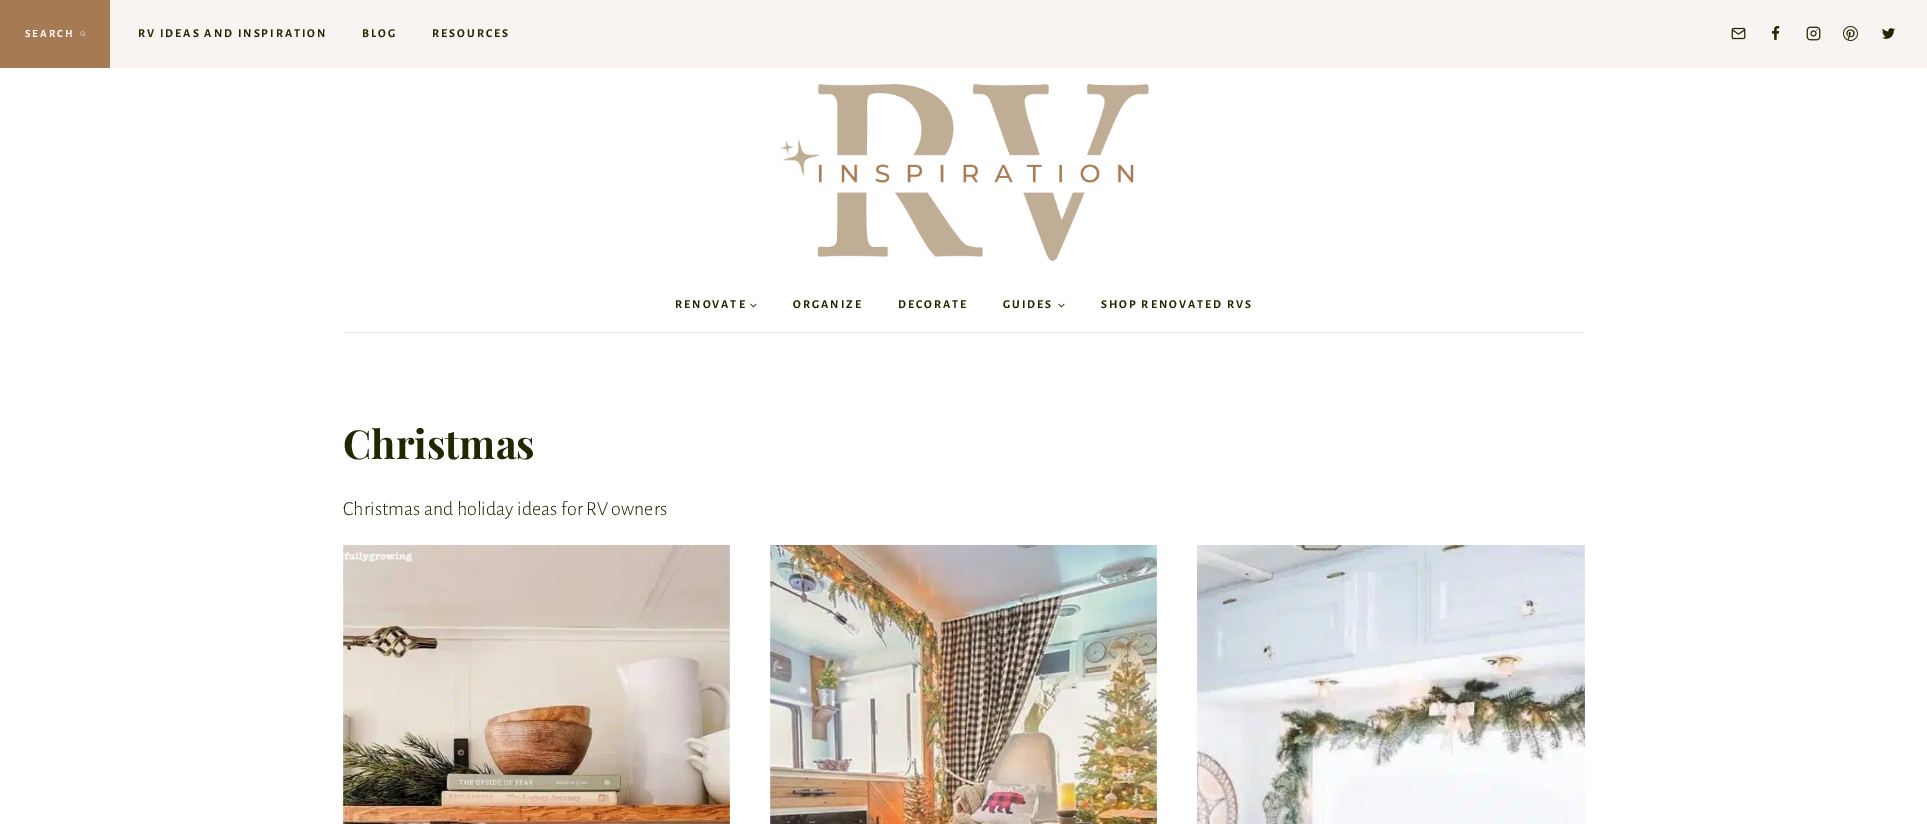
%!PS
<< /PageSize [1927 824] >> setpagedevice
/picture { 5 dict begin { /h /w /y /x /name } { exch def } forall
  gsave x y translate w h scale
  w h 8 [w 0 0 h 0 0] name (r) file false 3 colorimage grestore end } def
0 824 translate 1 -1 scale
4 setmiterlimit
1 setgray
0 0 1927 824 rectfill
0.976 0.957 0.945 setrgbcolor
110 0 1817 68 rectfill
0.651 0.478 0.325 setrgbcolor
0 0 110 68 rectfill
/AlegreyaSans-Bold [11 0 0 -11 0 0] selectfont
1 setgray
25 37 moveto 2 0 (SEARCH) ashow
(img1.rgb) 80 31 5 5 picture
/AlegreyaSans-Bold [12 0 0 -12 0 0] selectfont
0.133 0.149 0.004 setrgbcolor
138 37 moveto 2 0 (RV IDEAS AND INSPIRATION) ashow
362 37 moveto 2 0 (BLOG) ashow
432 37 moveto 2 0 (RESOURCES) ashow
(img2.rgb) 1731 27 15 13 picture
(img3.rgb) 1772 26 8 14 picture
(img4.rgb) 1806 26 15 15 picture
(img5.rgb) 1843 26 15 15 picture
(img6.rgb) 1882 28 13 11 picture
(img7.rgb) 780 84 369 177 picture
0.945 0.906 0.878 setrgbcolor
343 332 1242 1 rectfill
0.133 0.149 0.004 setrgbcolor
675 308 moveto 2 0 (RENOVATE) ashow
(img8.rgb) 750 303 7 5 picture
793 308 moveto 2 0 (ORGANIZE) ashow
898 308 moveto 2 0 (DECORATE) ashow
1003 308 moveto 2 0 (GUIDES) ashow
(img8.rgb) 1058 303 7 5 picture
1101 308 moveto 2 0 (SHOP RENOVATED RVS) ashow
/PlayfairDisplay-Bold [40 0 0 -40 0 0] selectfont
343 459 moveto (Christmas) show
/AlegreyaSans-Light [20 0 0 -20 0 0] selectfont
343 515 moveto (Christmas and holiday ideas for RV owners) show
(img9.rgb) 343 545 387 279 picture
(img10.rgb) 770 545 387 279 picture
(img11.rgb) 1197 545 388 279 picture
showpage
